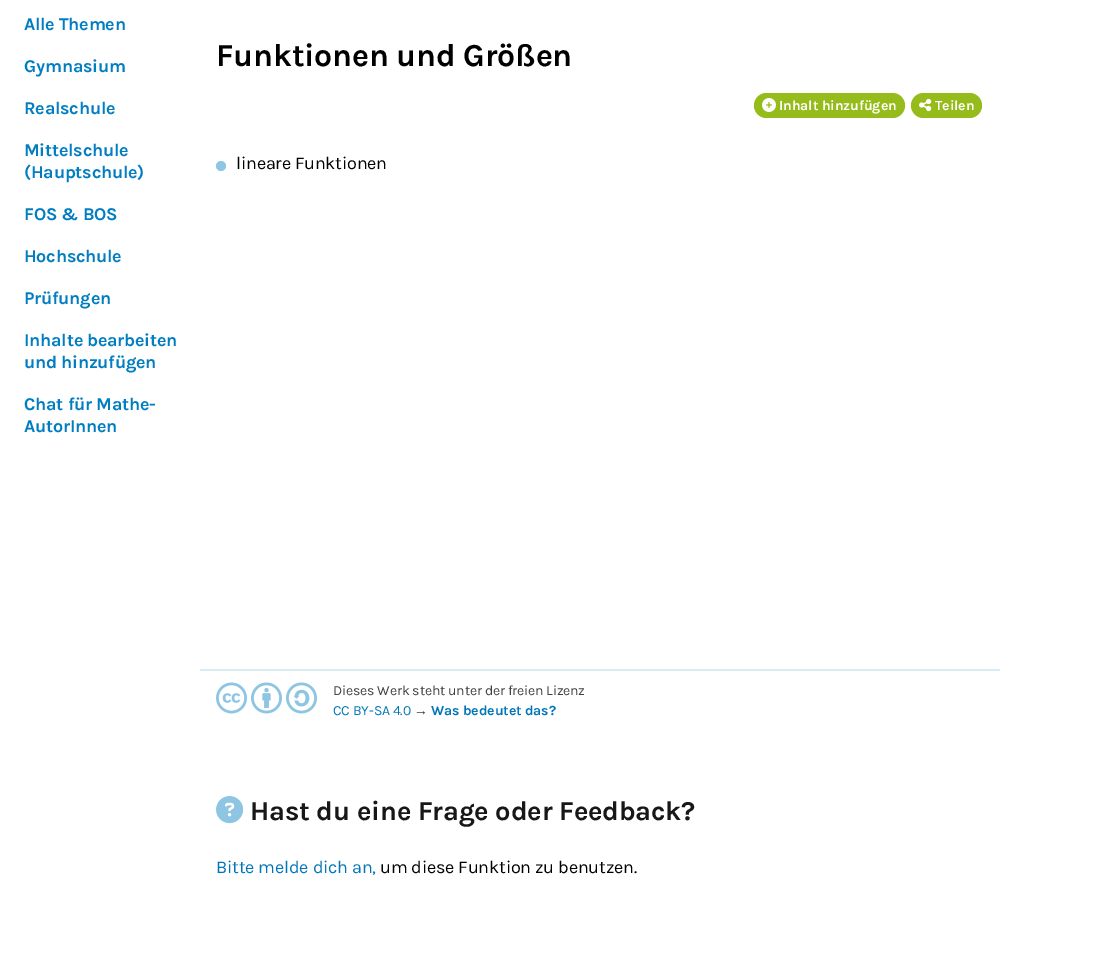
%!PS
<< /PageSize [1104 953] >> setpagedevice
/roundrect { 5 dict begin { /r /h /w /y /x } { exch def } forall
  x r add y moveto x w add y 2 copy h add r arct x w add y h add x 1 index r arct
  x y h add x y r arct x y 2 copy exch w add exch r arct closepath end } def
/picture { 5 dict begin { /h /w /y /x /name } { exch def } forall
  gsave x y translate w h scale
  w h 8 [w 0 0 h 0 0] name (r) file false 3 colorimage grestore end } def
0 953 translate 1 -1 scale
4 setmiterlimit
1 setgray
0 0 1104 953 rectfill
/Karla-Bold [18 0 0 -18 0 0] selectfont
0 0.494 0.757 setrgbcolor
24 30 moveto -0.25 0 (Alle Themen) ashow
24 72 moveto -0.25 0 (Gymnasium) ashow
24 114 moveto -0.25 0 (Realschule) ashow
24 156 moveto -0.25 0 (Mittelschule) ashow
24 178 moveto -0.25 0 (\(Hauptschule\)) ashow
24 220 moveto -0.25 0 (FOS & BOS) ashow
24 262 moveto -0.25 0 (Hochschule) ashow
24 304 moveto -0.25 0 (Prüfungen) ashow
24 346 moveto -0.25 0 (Inhalte bearbeiten) ashow
24 368 moveto -0.25 0 (und hinzufügen) ashow
24 410 moveto -0.25 0 (Chat für Mathe-) ashow
24 432 moveto -0.25 0 (AutorInnen) ashow
/Karla-Bold [32 0 0 -32 0 0] selectfont
0 setgray
216 66 moveto -0.2 0 (Funktionen und Größen) ashow
0.584 0.737 0.102 setrgbcolor
754 93 151 25 12.5 roundrect fill
(img1.rgb) 762 98 14 14 picture
/Karla-Bold [14 0 0 -14 0 0] selectfont
1 setgray
779 110 moveto -0.1 0 (Inhalt hinzufügen) ashow
0.584 0.737 0.102 setrgbcolor
911 93 71 25 12.5 roundrect fill
(img2.rgb) 919 98 13 14 picture
1 setgray
935 110 moveto -0.1 0 (Teilen) ashow
0.557 0.773 0.886 setrgbcolor
newpath 221 166 5 0 360 arc closepath fill
/Karla-Regular [18 0 0 -18 0 0] selectfont
0 setgray
236 169 moveto -0.2 0 (lineare Funktionen) ashow
0.851 0.922 0.961 setrgbcolor
200 669 800 2 rectfill
(img3.rgb) 216 682 31 32 picture
(img4.rgb) 251 682 31 32 picture
(img5.rgb) 286 682 31 32 picture
/Karla-Regular [14 0 0 -14 0 0] selectfont
0.251 setgray
333 695 moveto -0.2 0 (Dieses Werk steht unter der freien Lizenz) ashow
0 0.463 0.725 setrgbcolor
333 715 moveto -0.2 0 (CC BY-SA 4.0) ashow
/LiberationSans-Regular [14 0 0 -14 0 0] selectfont
0.251 setgray
414 715 moveto -0.2 0 (→) ashow
/Karla-Bold [14 0 0 -14 0 0] selectfont
0 0.463 0.725 setrgbcolor
431 715 moveto -0.1 0 (Was bedeutet das?) ashow
(img6.rgb) 216 796 28 28 picture
/Karla-Bold [27.25 0 0 -27.25 0 0] selectfont
0.09 setgray
250 820 moveto -0.15 0 (Hast du eine Frage oder Feedback?) ashow
/Karla-Regular [18 0 0 -18 0 0] selectfont
0 0.463 0.725 setrgbcolor
216 873 moveto -0.2 0 (Bitte melde dich an,) ashow
0 setgray
380 873 moveto -0.2 0 (um diese Funktion zu benutzen.) ashow
showpage
